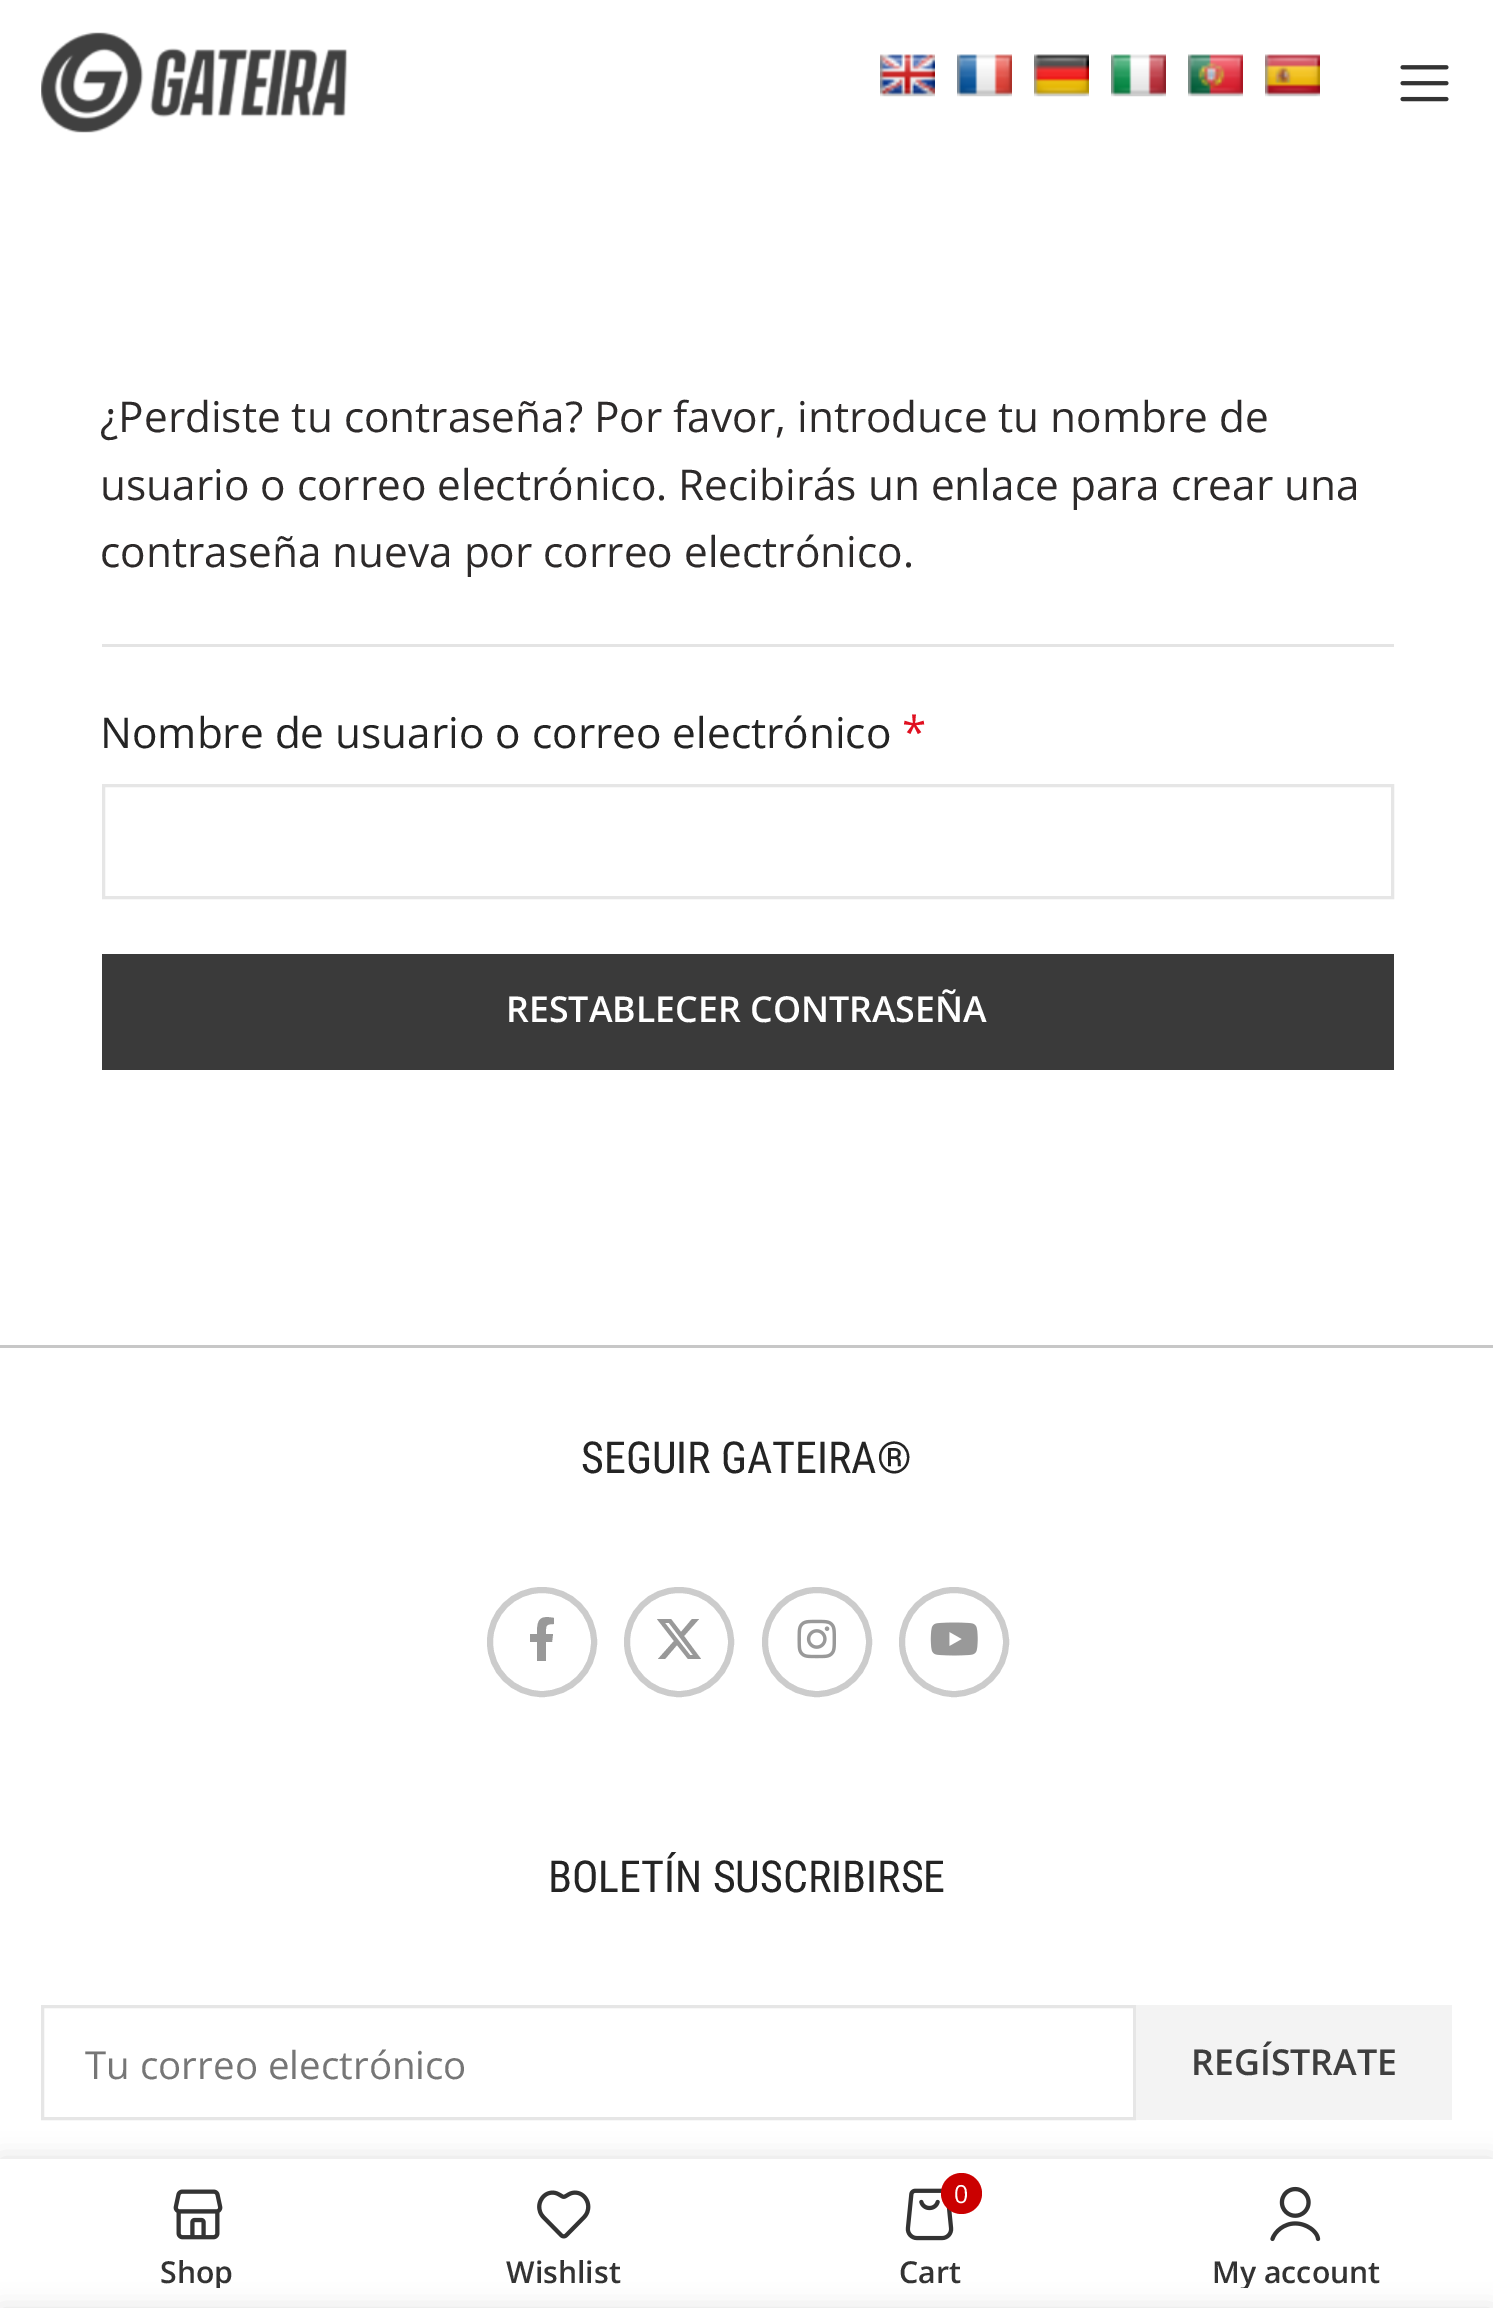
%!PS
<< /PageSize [1493 2308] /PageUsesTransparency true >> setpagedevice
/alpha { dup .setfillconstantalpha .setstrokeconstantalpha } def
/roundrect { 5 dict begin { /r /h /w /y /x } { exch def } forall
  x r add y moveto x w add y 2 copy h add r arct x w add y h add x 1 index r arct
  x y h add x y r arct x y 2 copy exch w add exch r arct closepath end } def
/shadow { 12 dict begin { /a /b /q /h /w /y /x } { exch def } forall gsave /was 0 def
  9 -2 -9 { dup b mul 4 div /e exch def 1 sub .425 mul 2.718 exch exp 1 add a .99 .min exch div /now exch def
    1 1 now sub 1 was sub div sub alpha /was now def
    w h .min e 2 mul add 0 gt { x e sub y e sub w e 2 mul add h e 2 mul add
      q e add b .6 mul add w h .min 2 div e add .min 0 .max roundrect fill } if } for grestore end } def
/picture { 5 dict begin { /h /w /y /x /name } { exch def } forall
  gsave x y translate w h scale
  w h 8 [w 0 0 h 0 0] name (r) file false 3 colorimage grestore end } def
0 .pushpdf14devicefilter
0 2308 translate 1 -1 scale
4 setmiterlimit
1 setgray
0 0 1493 2308 rectfill
(img1.rgb) 41 32 307 101 picture
(img2.rgb) 880 54 55 43 picture
(img3.rgb) 957 54 55 43 picture
(img4.rgb) 1034 54 55 43 picture
(img5.rgb) 1111 54 55 43 picture
(img6.rgb) 1188 54 55 43 picture
(img7.rgb) 1265 54 55 43 picture
(img8.rgb) 1400 65 49 37 picture
/OpenSans-Regular [42.35 0 0 -42.35 0 0] selectfont
0.176 0.165 0.165 setrgbcolor
100 432 moveto (¿Perdiste tu contraseña? Por favor, introduce tu nombre de) show
100 500 moveto (usuario o correo electrónico. Recibirás un enlace para crear una) show
100 567 moveto (contraseña nueva por correo electrónico.) show
0.894 setgray
102 644 1292 3 rectfill
0.141 setgray
100 748 moveto (Nombre de usuario o correo electrónico) show
/OpenSans-Regular [44 0 0 -44 0 0] selectfont
0.878 0.063 0.125 setrgbcolor
902 748 moveto (*) show
0.902 setgray
3 setlinewidth
103.5 785.5 1289 112 rectstroke
0.227 setgray
102 954 1292 116 rectfill
/OpenSans-SemiBold [35.75 0 0 -35.75 0 0] selectfont
1 setgray
506 1022 moveto (RESTABLECER CONTRASEÑA) show
0.78 setgray
0 1345 1493 3 rectfill
/RobotoCondensed-Regular [44 0 0 -44 0 0] selectfont
0.141 setgray
581 1473 moveto (SEGUIR GATEIRA®) show
0.8 setgray
6 setlinewidth
newpath 542 1642 52 0 360 arc closepath stroke
0.6 setgray
newpath 552 1642 moveto 553 1634 lineto 546 1634 lineto 546 1626 545 1624 554 1624 curveto 554 1618 lineto 539 1615 537 1620 537 1634 curveto 530 1634 lineto 530 1642 lineto 537 1642 lineto 537 1661 lineto 546 1661 lineto 546 1642 lineto closepath fill
0.8 setgray
newpath 679 1642 52 0 360 arc closepath stroke
0.6 setgray
newpath 692 1619 moveto 699 1619 lineto 684 1636 lineto 701 1659 lineto 688 1659 lineto 677 1645 lineto 665 1659 lineto 658 1659 lineto 674 1641 lineto 657 1619 lineto 671 1619 lineto 681 1632 lineto closepath 690 1655 moveto 693 1655 lineto 669 1623 lineto 665 1623 lineto closepath fill
0.8 setgray
newpath 817 1642 52 0 360 arc closepath stroke
(img9.rgb) 797 1619 39 40 picture
newpath 954 1642 52 0 360 arc closepath stroke
(img10.rgb) 930 1622 48 34 picture
0.141 setgray
548 1892 moveto (BOLETÍN SUSCRIBIRSE) show
0.902 setgray
3 setlinewidth
42.5 2006.5 1092 112 rectstroke
/OpenSans-Regular [38.5 0 0 -38.5 0 0] selectfont
0.463 setgray
85 2079 moveto (Tu correo electrónico) show
0.953 setgray
1136 2005 316 115 rectfill
/OpenSans-SemiBold [35.75 0 0 -35.75 0 0] selectfont
0.243 setgray
1191 2075 moveto (REGÍSTRATE) show
0 setgray
0 2159 1493 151 0 12.5 0.12 shadow
1 setgray
0 2159 1493 149 rectfill
(img11.rgb) 173 2189 50 51 picture
gsave
41 2252 311 36 rectclip
/OpenSans-SemiBold [30.25 0 0 -30.25 0 0] selectfont
0.2 setgray
160 2283 moveto (Shop) show
grestore
(img12.rgb) 537 2190 54 49 picture
/OpenSans-SemiBold [30.25 0 0 -30.25 0 0] selectfont
0.2 setgray
506 2283 moveto (Wishlist) show
(img13.rgb) 905 2188 49 53 picture
0.796 0 0 setrgbcolor
newpath 961.5 2193.5 20.5 0 360 arc closepath fill
/OpenSans-Regular [25 0 0 -25 0 0] selectfont
1 setgray
954 2203 moveto (0) show
/OpenSans-SemiBold [30.25 0 0 -30.25 0 0] selectfont
0.2 setgray
899 2283 moveto (Cart) show
(img14.rgb) 1270 2186 51 56 picture
gsave
1141 2252 311 36 rectclip
1212 2283 moveto (My account) show
grestore
0 setgray
0 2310 1493 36 0 12.5 0.14 shadow
.poppdf14devicefilter showpage
